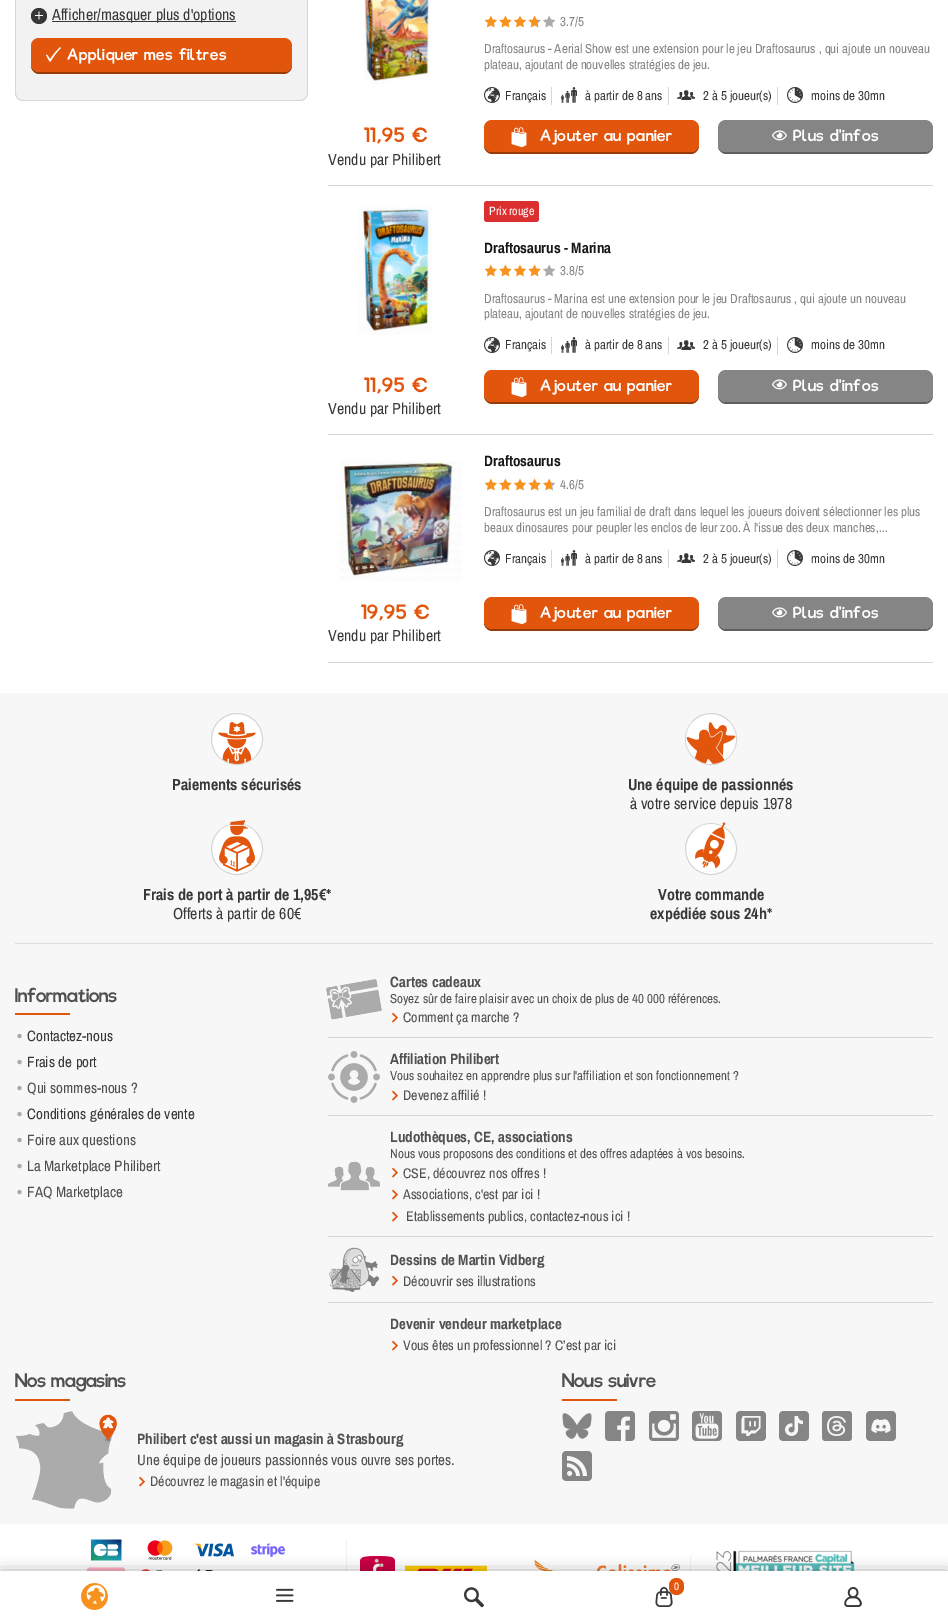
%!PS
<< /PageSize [948 1622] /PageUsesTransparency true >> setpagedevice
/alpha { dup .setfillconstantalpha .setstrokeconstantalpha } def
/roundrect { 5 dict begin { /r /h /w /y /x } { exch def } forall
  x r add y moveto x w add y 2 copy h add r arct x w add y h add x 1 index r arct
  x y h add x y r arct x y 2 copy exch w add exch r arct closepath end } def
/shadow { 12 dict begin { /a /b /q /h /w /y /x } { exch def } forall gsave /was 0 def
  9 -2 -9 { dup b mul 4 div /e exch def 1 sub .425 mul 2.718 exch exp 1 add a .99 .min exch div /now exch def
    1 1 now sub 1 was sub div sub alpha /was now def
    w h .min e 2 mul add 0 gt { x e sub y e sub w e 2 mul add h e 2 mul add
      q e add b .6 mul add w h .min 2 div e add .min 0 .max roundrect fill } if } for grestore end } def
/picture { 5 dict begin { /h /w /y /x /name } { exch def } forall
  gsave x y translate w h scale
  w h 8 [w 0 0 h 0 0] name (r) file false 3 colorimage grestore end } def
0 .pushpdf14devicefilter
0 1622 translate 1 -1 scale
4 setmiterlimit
1 setgray
0 0 948 1622 rectfill
0.949 setgray
newpath 15 -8 moveto 308 -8 lineto 308 93 lineto 308 97.5 304.5 101 300 101 curveto 23 101 lineto 18.5 101 15 97.5 15 93 curveto closepath fill
0.839 setgray
newpath 15 -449 moveto 308 -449 lineto 308 93 lineto 308 97 304 101 300 101 curveto 23 101 lineto 19 101 15 97 15 93 curveto closepath 16 -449 moveto 307 -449 lineto 307 93 lineto 307 97 304 100 300 100 curveto 23 100 lineto 19 100 16 97 16 93 curveto closepath eofill
0.22 setgray
newpath 39 16 8 0 360 arc closepath fill
(img1.rgb) 35 11 8 9 picture
52 21 184 1 rectfill
/ArchivoNarrow-Regular [16 0 0 -16 0 0] selectfont
52 20 moveto (Afficher/masquer plus d'options) show
0.6 0.227 0.035 setrgbcolor
newpath 31 64 moveto 31 66 lineto 31 70 35 74 39 74 curveto 284 74 lineto 288 74 292 70 292 66 curveto 292 64 lineto 292 68 288 72 284 72 curveto 39 72 lineto 35 72 31 68 31 64 curveto closepath fill
0.882 0.333 0.051 setrgbcolor
31 38 261 34 8 roundrect fill
(img2.rgb) 46 47 15 15 picture
/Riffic-Medium [15 0 0 -15 0 0] selectfont
1 setgray
67 60 moveto 0.75 0 (Appliquer mes filtres) ashow
0.839 setgray
328 185 605 1 rectfill
(img3.rgb) 364 0 67 84 picture
0.671 setgray
484 15 72 13 rectfill
0.969 0.573 0.118 setrgbcolor
485 15 53 13 rectfill
(img4.rgb) 484 15 72 13 picture
/ArchivoNarrow-Regular [13 0 0 -13 0 0] selectfont
0.522 setgray
560 26 moveto (3.7/5) show
484 53 moveto (Draftosaurus - Aerial Show est une extension pour le jeu Draftosaurus , qui ajoute un nouveau) show
484 69 moveto (plateau, ajoutant de nouvelles stratégies de jeu.) show
0.839 setgray
551 87 1 18 rectfill
(img5.rgb) 484 87 16 16 picture
0.22 setgray
505 100 moveto (Français) show
0.839 setgray
668 87 1 18 rectfill
(img6.rgb) 561 87 16 16 picture
0.22 setgray
585 100 moveto (à partir de 8 ans) show
0.839 setgray
777 87 1 18 rectfill
(img7.rgb) 677 90 18 10 picture
0.22 setgray
703 100 moveto (2 à 5 joueur\(s\)) show
(img8.rgb) 787 87 16 16 picture
811 100 moveto (moins de 30mn) show
/Riffic-Medium [19 0 0 -19 0 0] selectfont
0.882 0.333 0.051 setrgbcolor
364 142 moveto 1 0 (11,95 €) ashow
0.6 0.227 0.035 setrgbcolor
newpath 484 144 moveto 484 146 lineto 484 150 488 154 492 154 curveto 691 154 lineto 695 154 699 150 699 146 curveto 699 144 lineto 699 148 695 152 691 152 curveto 492 152 lineto 488 152 484 148 484 144 curveto closepath fill
0.882 0.333 0.051 setrgbcolor
484 120 215 32 8 roundrect fill
(img9.rgb) 511 127 16 21 picture
/Riffic-Medium [15 0 0 -15 0 0] selectfont
1 setgray
540 141 moveto 0.75 0 (Ajouter au panier) ashow
0.373 setgray
newpath 718 144 moveto 718 146 lineto 718 150 722 154 726 154 curveto 925 154 lineto 929 154 933 150 933 146 curveto 933 144 lineto 933 148 929 152 925 152 curveto 726 152 lineto 722 152 718 148 718 144 curveto closepath fill
0.522 setgray
718 120 215 32 8 roundrect fill
(img10.rgb) 772 130 15 11 picture
1 setgray
793 141 moveto 0.75 0 (Plus d'infos) ashow
/ArchivoNarrow-Regular [16 0 0 -16 0 0] selectfont
0.22 setgray
328 165 moveto (Vendu par Philibert) show
0.839 setgray
328 434 605 1 rectfill
(img11.rgb) 358 207 74 128 picture
0.863 0.184 0.184 setrgbcolor
484 201 55 21 3 roundrect fill
/ArchivoNarrow-Regular [12 0 0 -12 0 0] selectfont
1 setgray
489 215 moveto (Prix rouge) show
/ArchivoNarrow-Bold [15 0 0 -15 0 0] selectfont
0.09 setgray
484 253 moveto (Draftosaurus - Marina) show
0.671 setgray
484 264 72 13 rectfill
0.969 0.573 0.118 setrgbcolor
485 264 55 13 rectfill
(img12.rgb) 484 264 72 13 picture
/ArchivoNarrow-Regular [13 0 0 -13 0 0] selectfont
0.522 setgray
560 275 moveto (3.8/5) show
484 303 moveto (Draftosaurus - Marina est une extension pour le jeu Draftosaurus , qui ajoute un nouveau) show
484 318 moveto (plateau, ajoutant de nouvelles stratégies de jeu.) show
0.839 setgray
551 337 1 17 rectfill
(img5.rgb) 484 337 16 16 picture
0.22 setgray
505 349 moveto (Français) show
0.839 setgray
668 337 1 17 rectfill
(img6.rgb) 561 337 16 16 picture
0.22 setgray
585 349 moveto (à partir de 8 ans) show
0.839 setgray
777 337 1 18 rectfill
(img7.rgb) 677 340 18 10 picture
0.22 setgray
703 349 moveto (2 à 5 joueur\(s\)) show
(img8.rgb) 787 337 16 16 picture
811 349 moveto (moins de 30mn) show
/Riffic-Medium [19 0 0 -19 0 0] selectfont
0.882 0.333 0.051 setrgbcolor
364 392 moveto 1 0 (11,95 €) ashow
0.6 0.227 0.035 setrgbcolor
newpath 484 394 moveto 484 396 lineto 484 400 488 404 492 404 curveto 691 404 lineto 695 404 699 400 699 396 curveto 699 394 lineto 699 398 695 402 691 402 curveto 492 402 lineto 488 402 484 398 484 394 curveto closepath fill
0.882 0.333 0.051 setrgbcolor
484 370 215 32 8 roundrect fill
(img9.rgb) 511 377 16 21 picture
/Riffic-Medium [15 0 0 -15 0 0] selectfont
1 setgray
540 391 moveto 0.75 0 (Ajouter au panier) ashow
0.373 setgray
newpath 718 394 moveto 718 396 lineto 718 400 722 404 726 404 curveto 925 404 lineto 929 404 933 400 933 396 curveto 933 394 lineto 933 398 929 402 925 402 curveto 726 402 lineto 722 402 718 398 718 394 curveto closepath fill
0.522 setgray
718 370 215 32 8 roundrect fill
(img10.rgb) 772 379 15 11 picture
1 setgray
793 391 moveto 0.75 0 (Plus d'infos) ashow
/ArchivoNarrow-Regular [16 0 0 -16 0 0] selectfont
0.22 setgray
328 414 moveto (Vendu par Philibert) show
0.839 setgray
328 662 605 1 rectfill
(img13.rgb) 339 461 123 120 picture
/ArchivoNarrow-Bold [15 0 0 -15 0 0] selectfont
0.09 setgray
484 466 moveto (Draftosaurus) show
0.671 setgray
484 482 72 9 rectfill
0.969 0.573 0.118 setrgbcolor
485 478 66 13 rectfill
(img14.rgb) 484 478 72 13 picture
/ArchivoNarrow-Regular [13 0 0 -13 0 0] selectfont
0.522 setgray
560 489 moveto (4.6/5) show
484 516 moveto (Draftosaurus est un jeu familial de draft dans lequel les joueurs doivent sélectionner les plus) show
484 532 moveto (beaux dinosaures pour peupler les enclos de leur zoo. À l'issue des deux manches,...) show
0.839 setgray
551 550 1 18 rectfill
(img5.rgb) 484 550 16 16 picture
0.22 setgray
505 563 moveto (Français) show
0.839 setgray
668 550 1 18 rectfill
(img6.rgb) 561 550 16 16 picture
0.22 setgray
585 563 moveto (à partir de 8 ans) show
0.839 setgray
777 550 1 18 rectfill
(img7.rgb) 677 553 18 10 picture
0.22 setgray
703 563 moveto (2 à 5 joueur\(s\)) show
(img8.rgb) 787 550 16 16 picture
811 563 moveto (moins de 30mn) show
/Riffic-Medium [19 0 0 -19 0 0] selectfont
0.882 0.333 0.051 setrgbcolor
361 619 moveto 1 0 (19,95 €) ashow
0.6 0.227 0.035 setrgbcolor
newpath 484 621 moveto 484 623 lineto 484 627 488 631 492 631 curveto 691 631 lineto 695 631 699 627 699 623 curveto 699 621 lineto 699 625 695 629 691 629 curveto 492 629 lineto 488 629 484 625 484 621 curveto closepath fill
0.882 0.333 0.051 setrgbcolor
484 597 215 32 8 roundrect fill
(img9.rgb) 511 604 16 21 picture
/Riffic-Medium [15 0 0 -15 0 0] selectfont
1 setgray
540 618 moveto 0.75 0 (Ajouter au panier) ashow
0.373 setgray
newpath 718 621 moveto 718 623 lineto 718 627 722 631 726 631 curveto 925 631 lineto 929 631 933 627 933 623 curveto 933 621 lineto 933 625 929 629 925 629 curveto 726 629 lineto 722 629 718 625 718 621 curveto closepath fill
0.522 setgray
718 597 215 32 8 roundrect fill
(img10.rgb) 772 607 15 11 picture
1 setgray
793 618 moveto 0.75 0 (Plus d'infos) ashow
/ArchivoNarrow-Regular [16 0 0 -16 0 0] selectfont
0.22 setgray
328 641 moveto (Vendu par Philibert) show
0.969 setgray
0 693 948 831 rectfill
(img15.rgb) 211 713 52 52 picture
0.839 setgray
newpath 237 739 25.5 0 360 arc closepath stroke
(img16.rgb) 218 722 38 42 picture
/ArchivoNarrow-Bold [16 0 0 -16 0 0] selectfont
0.22 setgray
172 790 moveto (Paiements sécurisés) show
(img17.rgb) 685 713 52 52 picture
0.839 setgray
newpath 711 739 25.5 0 360 arc closepath stroke
(img18.rgb) 686 722 50 42 picture
0.22 setgray
628 790 moveto (Une équipe de passionnés) show
/ArchivoNarrow-Regular [16 0 0 -16 0 0] selectfont
630 809 moveto (à votre service depuis 1978) show
1 setgray
newpath 237 849 25.5 0 360 arc closepath gsave fill grestore
0.839 setgray
stroke
(img19.rgb) 219 820 36 52 picture
/ArchivoNarrow-Bold [16 0 0 -16 0 0] selectfont
0.22 setgray
143 900 moveto (Frais de port à partir de 1,95€*) show
/ArchivoNarrow-Regular [16 0 0 -16 0 0] selectfont
173 919 moveto (Offerts à partir de 60€) show
1 setgray
newpath 711 849 25.5 0 360 arc closepath gsave fill grestore
0.839 setgray
stroke
(img20.rgb) 695 822 31 47 picture
/ArchivoNarrow-Bold [16 0 0 -16 0 0] selectfont
0.22 setgray
658 900 moveto (Votre commande) show
650 919 moveto (expédiée sous 24h*) show
0.871 0.867 0.867 setrgbcolor
15 943 918 1 rectfill
/Riffic-Medium [18 0 0 -18 0 0] selectfont
0.314 setgray
15 1002 moveto (Informations) show
0.882 0.333 0.051 setrgbcolor
15 1013 55 2 rectfill
(img21.rgb) 17 1033 5 6 picture
/ArchivoNarrow-Regular [15 0 0 -15 0 0] selectfont
0.22 setgray
27 1041 moveto (Contactez-nous) show
(img21.rgb) 17 1059 5 6 picture
27 1067 moveto (Frais de port) show
(img21.rgb) 17 1085 5 6 picture
0.314 setgray
27 1093 moveto (Qui sommes-nous ?) show
(img21.rgb) 17 1111 5 6 picture
0.22 setgray
27 1119 moveto (Conditions générales de vente) show
(img21.rgb) 17 1137 5 6 picture
0.314 setgray
27 1145 moveto (Foire aux questions) show
(img21.rgb) 17 1163 5 6 picture
27 1171 moveto (La Marketplace Philibert) show
(img21.rgb) 17 1189 5 6 picture
27 1197 moveto (FAQ Marketplace) show
0.839 setgray
328 1037 605 1 rectfill
(img22.rgb) 326 979 56 41 picture
/ArchivoNarrow-Bold [15 0 0 -15 0 0] selectfont
0.314 setgray
390 987 moveto (Cartes cadeaux) show
/ArchivoNarrow-Regular [13 0 0 -13 0 0] selectfont
390 1003 moveto (Soyez sûr de faire plaisir avec un choix de plus de 40 000 références.) show
(img23.rgb) 392 1012 6 11 picture
/ArchivoNarrow-Regular [14 0 0 -14 0 0] selectfont
403 1022 moveto (Comment ça marche ?) show
0.839 setgray
328 1115 605 1 rectfill
(img24.rgb) 328 1051 52 52 picture
/ArchivoNarrow-Bold [15 0 0 -15 0 0] selectfont
0.314 setgray
390 1064 moveto (Affiliation Philibert) show
/ArchivoNarrow-Regular [13 0 0 -13 0 0] selectfont
390 1080 moveto (Vous souhaitez en apprendre plus sur l'affiliation et son fonctionnement ?) show
(img23.rgb) 392 1090 6 11 picture
/ArchivoNarrow-Regular [14 0 0 -14 0 0] selectfont
403 1100 moveto (Devenez affilié !) show
0.839 setgray
328 1236 605 1 rectfill
(img25.rgb) 328 1161 52 30 picture
/ArchivoNarrow-Bold [15 0 0 -15 0 0] selectfont
0.314 setgray
390 1142 moveto (Ludothèques, CE, associations) show
/ArchivoNarrow-Regular [13 0 0 -13 0 0] selectfont
390 1158 moveto (Nous vous proposons des conditions et des offres adaptées à vos besoins.) show
(img23.rgb) 392 1167 6 11 picture
/ArchivoNarrow-Regular [14 0 0 -14 0 0] selectfont
403 1178 moveto (CSE, découvrez nos offres !) show
(img23.rgb) 392 1189 6 11 picture
403 1199 moveto (Associations, c'est par ici !) show
(img23.rgb) 392 1211 6 11 picture
406 1221 moveto (Etablissements publics, contactez-nous ici !) show
0.839 setgray
328 1302 605 1 rectfill
(img26.rgb) 328 1247 52 45 picture
/ArchivoNarrow-Bold [15 0 0 -15 0 0] selectfont
0.314 setgray
390 1265 moveto (Dessins de Martin Vidberg) show
(img23.rgb) 392 1275 6 11 picture
/ArchivoNarrow-Regular [14 0 0 -14 0 0] selectfont
403 1286 moveto (Découvrir ses illustrations) show
/ArchivoNarrow-Bold [15 0 0 -15 0 0] selectfont
390 1329 moveto (Devenir vendeur marketplace) show
(img23.rgb) 392 1340 6 11 picture
/ArchivoNarrow-Regular [14 0 0 -14 0 0] selectfont
403 1350 moveto (Vous êtes un professionnel ? C’est par ici) show
/Riffic-Medium [18 0 0 -18 0 0] selectfont
15 1387 moveto (Nos magasins) show
0.882 0.333 0.051 setrgbcolor
15 1399 55 2 rectfill
(img27.rgb) 16 1411 101 98 picture
/ArchivoNarrow-Bold [15 0 0 -15 0 0] selectfont
0.314 setgray
137 1444 moveto (Philibert c'est aussi un magasin à Strasbourg) show
/ArchivoNarrow-Regular [15 0 0 -15 0 0] selectfont
137 1465 moveto (Une équipe de joueurs passionnés vous ouvre ses portes.) show
(img23.rgb) 139 1476 6 11 picture
/ArchivoNarrow-Regular [14 0 0 -14 0 0] selectfont
150 1486 moveto (Découvrez le magasin et l'équipe) show
/Riffic-Medium [18 0 0 -18 0 0] selectfont
562 1387 moveto (Nous suivre) show
0.882 0.333 0.051 setrgbcolor
562 1399 55 2 rectfill
(img28.rgb) 562 1413 30 26 picture
(img29.rgb) 605 1411 30 30 picture
(img30.rgb) 649 1411 30 30 picture
(img31.rgb) 692 1411 30 30 picture
(img32.rgb) 736 1411 30 30 picture
(img33.rgb) 779 1411 30 30 picture
(img34.rgb) 822 1411 30 30 picture
(img35.rgb) 866 1411 30 30 picture
(img36.rgb) 562 1451 30 30 picture
0.949 setgray
346 1539 1 32 rectfill
(img37.rgb) 86 1539 199 32 picture
690 1556 1 15 rectfill
(img38.rgb) 360 1556 320 15 picture
(img39.rgb) 716 1550 139 21 picture
0 setgray
0 1571 948 51 0 7.5 0.3 shadow
1 setgray
0 1571 948 51 rectfill
(img40.rgb) 81 1583 27 27 picture
(img41.rgb) 276 1588 18 14 picture
(img42.rgb) 464 1587 20 21 picture
(img43.rgb) 655 1587 18 20 picture
0.882 0.333 0.051 setrgbcolor
669 1578 15 17 7.5 roundrect fill
/ArchivoNarrow-Regular [11 0 0 -11 0 0] selectfont
1 setgray
674 1590 moveto (0) show
(img44.rgb) 844 1587 18 20 picture
.poppdf14devicefilter showpage
